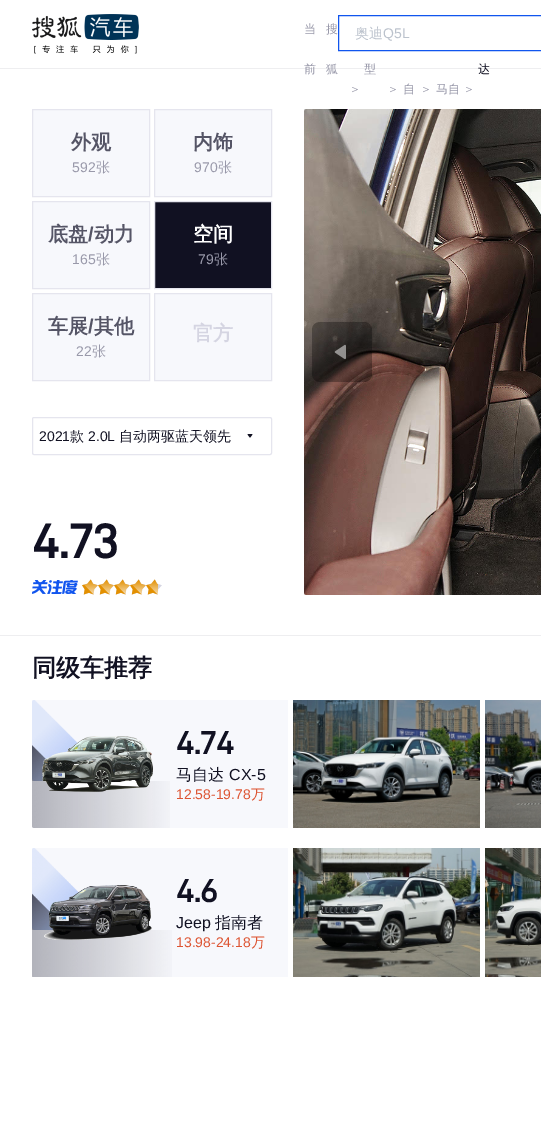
%!PS
<< /PageSize [541 1144] /PageUsesTransparency true >> setpagedevice
/alpha { dup .setfillconstantalpha .setstrokeconstantalpha } def
/roundrect { 5 dict begin { /r /h /w /y /x } { exch def } forall
  x r add y moveto x w add y 2 copy h add r arct x w add y h add x 1 index r arct
  x y h add x y r arct x y 2 copy exch w add exch r arct closepath end } def
/picture { 5 dict begin { /h /w /y /x /name } { exch def } forall
  gsave x y translate w h scale
  w h 8 [w 0 0 h 0 0] name (r) file false 3 colorimage grestore end } def
0 .pushpdf14devicefilter
0 1144 translate 1 -1 scale
4 setmiterlimit
1 setgray
0 0 541 1144 rectfill
/WenQuanYiZenHei-Medium [12 0 0 -12 0 0] selectfont
0.6 0.6 0.667 setrgbcolor
304 33 moveto (当) show
0.933 0.933 0.941 setrgbcolor
0 68 541 1 rectfill
0.6 0.6 0.667 setrgbcolor
304 73 moveto (前) show
326 33 moveto (搜) show
326 73 moveto (狐) show
364 73 moveto (型) show
0.067 0.067 0.133 setrgbcolor
478 73 moveto (达) show
0.6 0.6 0.667 setrgbcolor
349 93 moveto (＞) show
387 93 moveto (＞ 自) show
420 93 moveto (＞ 马自 ＞) show
(img1.rgb) 32 14 107 40 picture
0.067 0.333 0.933 setrgbcolor
338.5 15.5 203 35 rectstroke
/WenQuanYiZenHei-Medium [14 0 0 -14 0 0] selectfont
0.733 0.761 0.8 setrgbcolor
355 38 moveto (奥迪) show
/LiberationSans-Regular [14 0 0 -14 0 0] selectfont
383 38 moveto (Q5L) show
0.969 0.973 0.988 setrgbcolor
newpath 32.5 109.5 moveto 149.5 109.5 lineto 149.5 196.5 lineto 32.5 196.5 lineto closepath gsave fill grestore
0.898 0.898 0.933 setrgbcolor
stroke
/WenQuanYiZenHei-Bold [20 0 0 -20 0 0] selectfont
0.333 0.333 0.4 setrgbcolor
71 149 moveto (外观) show
/LiberationSans-Regular [14 0 0 -14 0 0] selectfont
0.6 0.6 0.667 setrgbcolor
72 172 moveto (592) show
/WenQuanYiZenHei-Medium [14 0 0 -14 0 0] selectfont
96 172 moveto (张) show
0.969 0.973 0.988 setrgbcolor
newpath 154.5 109.5 moveto 271.5 109.5 lineto 271.5 196.5 lineto 154.5 196.5 lineto closepath gsave fill grestore
0.898 0.898 0.933 setrgbcolor
stroke
/WenQuanYiZenHei-Bold [20 0 0 -20 0 0] selectfont
0.333 0.333 0.4 setrgbcolor
193 149 moveto (内饰) show
/LiberationSans-Regular [14 0 0 -14 0 0] selectfont
0.6 0.6 0.667 setrgbcolor
194 172 moveto (970) show
/WenQuanYiZenHei-Medium [14 0 0 -14 0 0] selectfont
218 172 moveto (张) show
0.969 0.973 0.988 setrgbcolor
newpath 32.5 201.5 moveto 149.5 201.5 lineto 149.5 288.5 lineto 32.5 288.5 lineto closepath gsave fill grestore
0.898 0.898 0.933 setrgbcolor
stroke
/WenQuanYiZenHei-Bold [20 0 0 -20 0 0] selectfont
0.333 0.333 0.4 setrgbcolor
48 241 moveto (底盘) show
/LiberationSans-Bold [20 0 0 -20 0 0] selectfont
88 241 moveto (/) show
/WenQuanYiZenHei-Bold [20 0 0 -20 0 0] selectfont
94 241 moveto (动力) show
/LiberationSans-Regular [14 0 0 -14 0 0] selectfont
0.6 0.6 0.667 setrgbcolor
72 264 moveto (165) show
/WenQuanYiZenHei-Medium [14 0 0 -14 0 0] selectfont
96 264 moveto (张) show
0.067 0.067 0.133 setrgbcolor
newpath 154.5 201.5 moveto 271.5 201.5 lineto 271.5 288.5 lineto 154.5 288.5 lineto closepath gsave fill grestore
0.898 0.898 0.933 setrgbcolor
stroke
/WenQuanYiZenHei-Bold [20 0 0 -20 0 0] selectfont
1 setgray
193 241 moveto (空间) show
/LiberationSans-Regular [14 0 0 -14 0 0] selectfont
0.6 0.6 0.667 setrgbcolor
198 264 moveto (79) show
/WenQuanYiZenHei-Medium [14 0 0 -14 0 0] selectfont
214 264 moveto (张) show
0.969 0.973 0.988 setrgbcolor
newpath 32.5 293.5 moveto 149.5 293.5 lineto 149.5 380.5 lineto 32.5 380.5 lineto closepath gsave fill grestore
0.898 0.898 0.933 setrgbcolor
stroke
/WenQuanYiZenHei-Bold [20 0 0 -20 0 0] selectfont
0.333 0.333 0.4 setrgbcolor
48 333 moveto (车展) show
/LiberationSans-Bold [20 0 0 -20 0 0] selectfont
88 333 moveto (/) show
/WenQuanYiZenHei-Bold [20 0 0 -20 0 0] selectfont
94 333 moveto (其他) show
/LiberationSans-Regular [14 0 0 -14 0 0] selectfont
0.6 0.6 0.667 setrgbcolor
76 356 moveto (22) show
/WenQuanYiZenHei-Medium [14 0 0 -14 0 0] selectfont
92 356 moveto (张) show
0.969 0.973 0.988 setrgbcolor
newpath 154.5 293.5 moveto 271.5 293.5 lineto 271.5 380.5 lineto 154.5 380.5 lineto closepath gsave fill grestore
0.898 0.898 0.933 setrgbcolor
stroke
/WenQuanYiZenHei-Bold [20 0 0 -20 0 0] selectfont
0.835 0.835 0.886 setrgbcolor
193 340 moveto (官方) show
0.898 0.898 0.933 setrgbcolor
32.5 417.5 239 37 1.5 roundrect stroke
/LiberationSans-Regular [14 0 0 -14 0 0] selectfont
0.067 0.067 0.133 setrgbcolor
39 441 moveto (2021) show
/WenQuanYiZenHei-Medium [14 0 0 -14 0 0] selectfont
70 441 moveto (款) show
/LiberationSans-Regular [14 0 0 -14 0 0] selectfont
88 441 moveto (2.0L) show
/WenQuanYiZenHei-Medium [14 0 0 -14 0 0] selectfont
119 441 moveto (自动两驱蓝天领先) show
(img2.rgb) 247 434 6 4 picture
/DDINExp-Bold [48 0 0 -48 0 0] selectfont
32 558 moveto (4.73) show
(img3.rgb) 32 580 46 14 picture
(img4.rgb) 82 579 16 16 picture
(img5.rgb) 82 579 16 16 picture
(img4.rgb) 98 579 16 16 picture
(img5.rgb) 98 579 16 16 picture
(img4.rgb) 114 579 16 16 picture
(img5.rgb) 114 579 16 16 picture
(img4.rgb) 130 579 16 16 picture
(img5.rgb) 130 579 16 16 picture
(img4.rgb) 146 579 16 16 picture
(img6.rgb) 146 579 12 16 picture
(img7.rgb) 304 109 237 486 picture
0.3 alpha
0 setgray
312 322 60 60 8 roundrect fill
1 alpha
(img8.rgb) 334 344 12 16 picture
0.933 0.933 0.941 setrgbcolor
0 635 541 1 rectfill
/WenQuanYiZenHei-Bold [24 0 0 -24 0 0] selectfont
0.067 0.067 0.133 setrgbcolor
32 676 moveto (同级车推荐) show
0.969 0.973 0.988 setrgbcolor
32 700 256 128 rectfill
(img9.rgb) 32 700 138 128 picture
(img10.rgb) 42 736 111 56 picture
/DDINExp-Bold [32 0 0 -32 0 0] selectfont
0.067 0.067 0.133 setrgbcolor
176 754 moveto (4.74) show
/WenQuanYiZenHei-Medium [16 0 0 -16 0 0] selectfont
176 780 moveto (马自达) show
/LiberationSans-Regular [16 0 0 -16 0 0] selectfont
229 780 moveto (CX-5) show
/LiberationSans-Regular [14 0 0 -14 0 0] selectfont
0.867 0.333 0.2 setrgbcolor
176 799 moveto (12.58-19.78) show
/WenQuanYiZenHei-Medium [14 0 0 -14 0 0] selectfont
251 799 moveto (万) show
(img11.rgb) 293 700 187 128 picture
(img12.rgb) 485 700 56 128 picture
0.969 0.973 0.988 setrgbcolor
32 848 256 129 rectfill
(img13.rgb) 32 848 140 129 picture
(img14.rgb) 44 885 108 55 picture
/DDINExp-Bold [32 0 0 -32 0 0] selectfont
0.067 0.067 0.133 setrgbcolor
176 902 moveto (4.6) show
/LiberationSans-Regular [16 0 0 -16 0 0] selectfont
176 928 moveto (Jeep) show
/WenQuanYiZenHei-Medium [16 0 0 -16 0 0] selectfont
215 928 moveto (指南者) show
/LiberationSans-Regular [14 0 0 -14 0 0] selectfont
0.867 0.333 0.2 setrgbcolor
176 947 moveto (13.98-24.18) show
/WenQuanYiZenHei-Medium [14 0 0 -14 0 0] selectfont
251 947 moveto (万) show
(img15.rgb) 293 848 187 129 picture
(img16.rgb) 485 848 56 129 picture
.poppdf14devicefilter showpage
